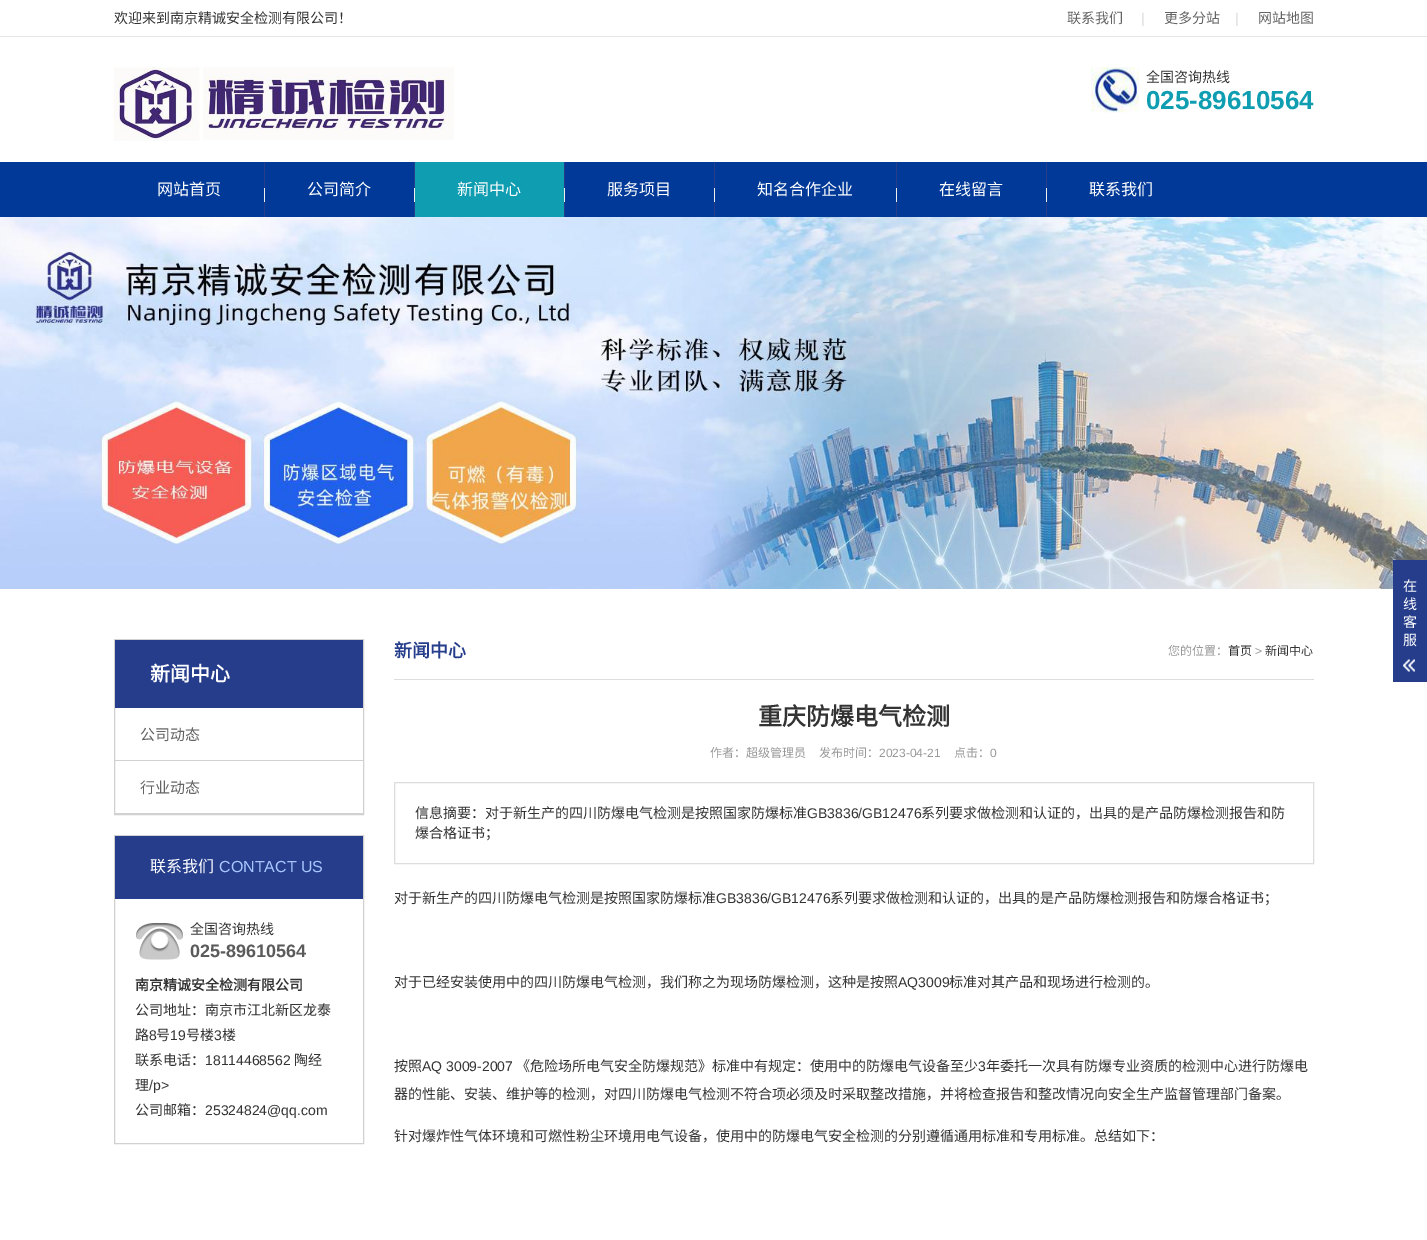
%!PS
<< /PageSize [1427 1240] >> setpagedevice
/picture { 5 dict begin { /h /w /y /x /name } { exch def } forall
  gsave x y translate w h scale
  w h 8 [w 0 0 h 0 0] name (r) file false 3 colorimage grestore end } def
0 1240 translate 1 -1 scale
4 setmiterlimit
1 setgray
0 0 1427 1240 rectfill
0.902 setgray
0 36 1427 1 rectfill
/NotoSansCJKSC-Regular [14 0 0 -14 0 0] selectfont
0.2 setgray
114 23 moveto (欢迎来到南京精诚安全检测有限公司！) show
0.392 setgray
1067 23 moveto (联系我们) show
/LiberationSans-Regular [14 0 0 -14 0 0] selectfont
0.867 setgray
1141 23 moveto (|) show
/NotoSansCJKSC-Regular [14 0 0 -14 0 0] selectfont
0.392 setgray
1164 23 moveto (更多分站) show
/LiberationSans-Regular [14 0 0 -14 0 0] selectfont
0.867 setgray
1235 23 moveto (|) show
/NotoSansCJKSC-Regular [14 0 0 -14 0 0] selectfont
0.392 setgray
1258 23 moveto (网站地图) show
(img1.rgb) 114 66 340 75 picture
(img2.rgb) 1091 67 48 46 picture
0.2 setgray
1146 82 moveto (全国咨询热线) show
/LiberationSans-Bold [26 0 0 -26 0 0] selectfont
0.055 0.616 0.694 setrgbcolor
1146 109 moveto (025-89610564) show
0.004 0.224 0.596 setrgbcolor
0 162 1427 55 rectfill
/NotoSansCJKSC-Regular [16 0 0 -16 0 0] selectfont
1 setgray
157 195 moveto (网站首页) show
(img3.rgb) 264 162 1 55 picture
307 195 moveto (公司简介) show
(img3.rgb) 414 162 1 55 picture
0.055 0.616 0.694 setrgbcolor
415 162 149 55 rectfill
1 setgray
457 195 moveto (新闻中心) show
(img3.rgb) 564 162 1 55 picture
607 195 moveto (服务项目) show
(img3.rgb) 714 162 1 55 picture
757 195 moveto (知名合作企业) show
(img3.rgb) 896 162 1 55 picture
939 195 moveto (在线留言) show
(img3.rgb) 1046 162 1 55 picture
1089 195 moveto (联系我们) show
(img4.rgb) 0 217 1427 372 picture
0.145 0.239 0.545 setrgbcolor
1393 560 34 122 rectfill
/NotoSansCJKSC-Regular [14 0 0 -14 0 0] selectfont
1 setgray
1403 591 moveto (在) show
1403 609 moveto (线) show
1403 627 moveto (客) show
1403 645 moveto (服) show
(img5.rgb) 1403 659 12 13 picture
0.82 setgray
114.5 639.5 249 175 rectstroke
0.145 0.239 0.545 setrgbcolor
115 640 248 68 rectfill
/NotoSansCJKSC-Bold [20 0 0 -20 0 0] selectfont
1 setgray
150 681 moveto (新闻中心) show
0.82 setgray
115 760 248 1 rectfill
/NotoSansCJKSC-Regular [15 0 0 -15 0 0] selectfont
0.392 setgray
140 740 moveto (公司动态) show
0.82 setgray
115 813 248 1 rectfill
0.392 setgray
140 793 moveto (行业动态) show
0.82 setgray
114.5 835.5 249 308 rectstroke
0.145 0.239 0.545 setrgbcolor
115 836 248 63 rectfill
/NotoSansCJKSC-Regular [16 0 0 -16 0 0] selectfont
1 setgray
150 872 moveto (联系我们) show
/LiberationSans-Regular [16 0 0 -16 0 0] selectfont
0.663 0.78 1 setrgbcolor
219 872 moveto (CONTACT US) show
(img6.rgb) 136 923 47 37 picture
/NotoSansCJKSC-Regular [14 0 0 -14 0 0] selectfont
0.2 setgray
190 934 moveto (全国咨询热线) show
/LiberationSans-Bold [18 0 0 -18 0 0] selectfont
0.357 setgray
190 957 moveto (025-89610564) show
/NotoSansCJKSC-Bold [14 0 0 -14 0 0] selectfont
0.2 setgray
135 990 moveto (南京精诚安全检测有限公司) show
/NotoSansCJKSC-Regular [14 0 0 -14 0 0] selectfont
135 1015 moveto (公司地址：南京市江北新区龙泰) show
135 1040 moveto (路) show
/LiberationSans-Regular [14 0 0 -14 0 0] selectfont
149 1040 moveto (8) show
/NotoSansCJKSC-Regular [14 0 0 -14 0 0] selectfont
156 1040 moveto (号) show
/LiberationSans-Regular [14 0 0 -14 0 0] selectfont
170 1040 moveto (19) show
/NotoSansCJKSC-Regular [14 0 0 -14 0 0] selectfont
186 1040 moveto (号楼) show
/LiberationSans-Regular [14 0 0 -14 0 0] selectfont
214 1040 moveto (3) show
/NotoSansCJKSC-Regular [14 0 0 -14 0 0] selectfont
222 1040 moveto (楼) show
135 1065 moveto (联系电话：) show
/LiberationSans-Regular [14 0 0 -14 0 0] selectfont
205 1065 moveto (18114468562) show
/NotoSansCJKSC-Regular [14 0 0 -14 0 0] selectfont
294 1065 moveto (陶经) show
135 1090 moveto (理) show
/LiberationSans-Regular [14 0 0 -14 0 0] selectfont
149 1090 moveto (/p>) show
/NotoSansCJKSC-Regular [14 0 0 -14 0 0] selectfont
135 1115 moveto (公司邮箱：) show
/LiberationSans-Regular [14 0 0 -14 0 0] selectfont
205 1115 moveto (25324824@qq.com) show
0.867 setgray
394 679 920 1 rectfill
/NotoSansCJKSC-Bold [18 0 0 -18 0 0] selectfont
0.145 0.239 0.545 setrgbcolor
394 657 moveto (新闻中心) show
/NotoSansCJKSC-Regular [12 0 0 -12 0 0] selectfont
0.6 setgray
1168 655 moveto (您的位置：) show
0.2 setgray
1228 655 moveto (首页) show
/LiberationSans-Regular [12 0 0 -12 0 0] selectfont
0.6 setgray
1255 655 moveto (>) show
/NotoSansCJKSC-Regular [12 0 0 -12 0 0] selectfont
0.2 setgray
1265 655 moveto (新闻中心) show
/NotoSansCJKSC-Bold [24 0 0 -24 0 0] selectfont
758 725 moveto (重庆防爆电气检测) show
/NotoSansCJKSC-Regular [12 0 0 -12 0 0] selectfont
0.6 setgray
710 757 moveto (作者：超级管理员) show
819 757 moveto (发布时间：) show
/LiberationSans-Regular [12 0 0 -12 0 0] selectfont
879 757 moveto (2023-04-21) show
/NotoSansCJKSC-Regular [12 0 0 -12 0 0] selectfont
954 757 moveto (点击：) show
/LiberationSans-Regular [12 0 0 -12 0 0] selectfont
990 757 moveto (0) show
0.867 setgray
394.5 782.5 919 81 rectstroke
/NotoSansCJKSC-Regular [14 0 0 -14 0 0] selectfont
0.2 setgray
415 818 moveto (信息摘要：对于新生产的四川防爆电气检测是按照国家防爆标准) show
/LiberationSans-Regular [14 0 0 -14 0 0] selectfont
807 818 moveto (GB3836/GB12476) show
/NotoSansCJKSC-Regular [14 0 0 -14 0 0] selectfont
921 818 moveto (系列要求做检测和认证的，出具的是产品防爆检测报告和防) show
415 838 moveto (爆合格证书；) show
394 903 moveto (对于新生产的四川防爆电气检测是按照国家防爆标准) show
/LiberationSans-Regular [14 0 0 -14 0 0] selectfont
716 903 moveto (GB3836/GB12476) show
/NotoSansCJKSC-Regular [14 0 0 -14 0 0] selectfont
830 903 moveto (系列要求做检测和认证的，出具的是产品防爆检测报告和防爆合格证书；) show
394 987 moveto (对于已经安装使用中的四川防爆电气检测，我们称之为现场防爆检测，这种是按照) show
/LiberationSans-Regular [14 0 0 -14 0 0] selectfont
898 987 moveto (AQ3009) show
/NotoSansCJKSC-Regular [14 0 0 -14 0 0] selectfont
949 987 moveto (标准对其产品和现场进行检测的。) show
394 1071 moveto (按照) show
/LiberationSans-Regular [14 0 0 -14 0 0] selectfont
422 1071 moveto (AQ 3009-2007) show
/NotoSansCJKSC-Regular [14 0 0 -14 0 0] selectfont
516 1071 moveto (《危险场所电气安全防爆规范》标准中有规定：使用中的防爆电气设备至少) show
/LiberationSans-Regular [14 0 0 -14 0 0] selectfont
978 1071 moveto (3) show
/NotoSansCJKSC-Regular [14 0 0 -14 0 0] selectfont
986 1071 moveto (年委托一次具有防爆专业资质的检测中心进行防爆电) show
394 1099 moveto (器的性能、安装、维护等的检测，对四川防爆电气检测不符合项必须及时采取整改措施，并将检查报告和整改情况向安全生产监督管理部门备案。) show
394 1141 moveto (针对爆炸性气体环境和可燃性粉尘环境用电气设备，使用中的防爆电气安全检测的分别遵循通用标准和专用标准。总结如下：) show
showpage
